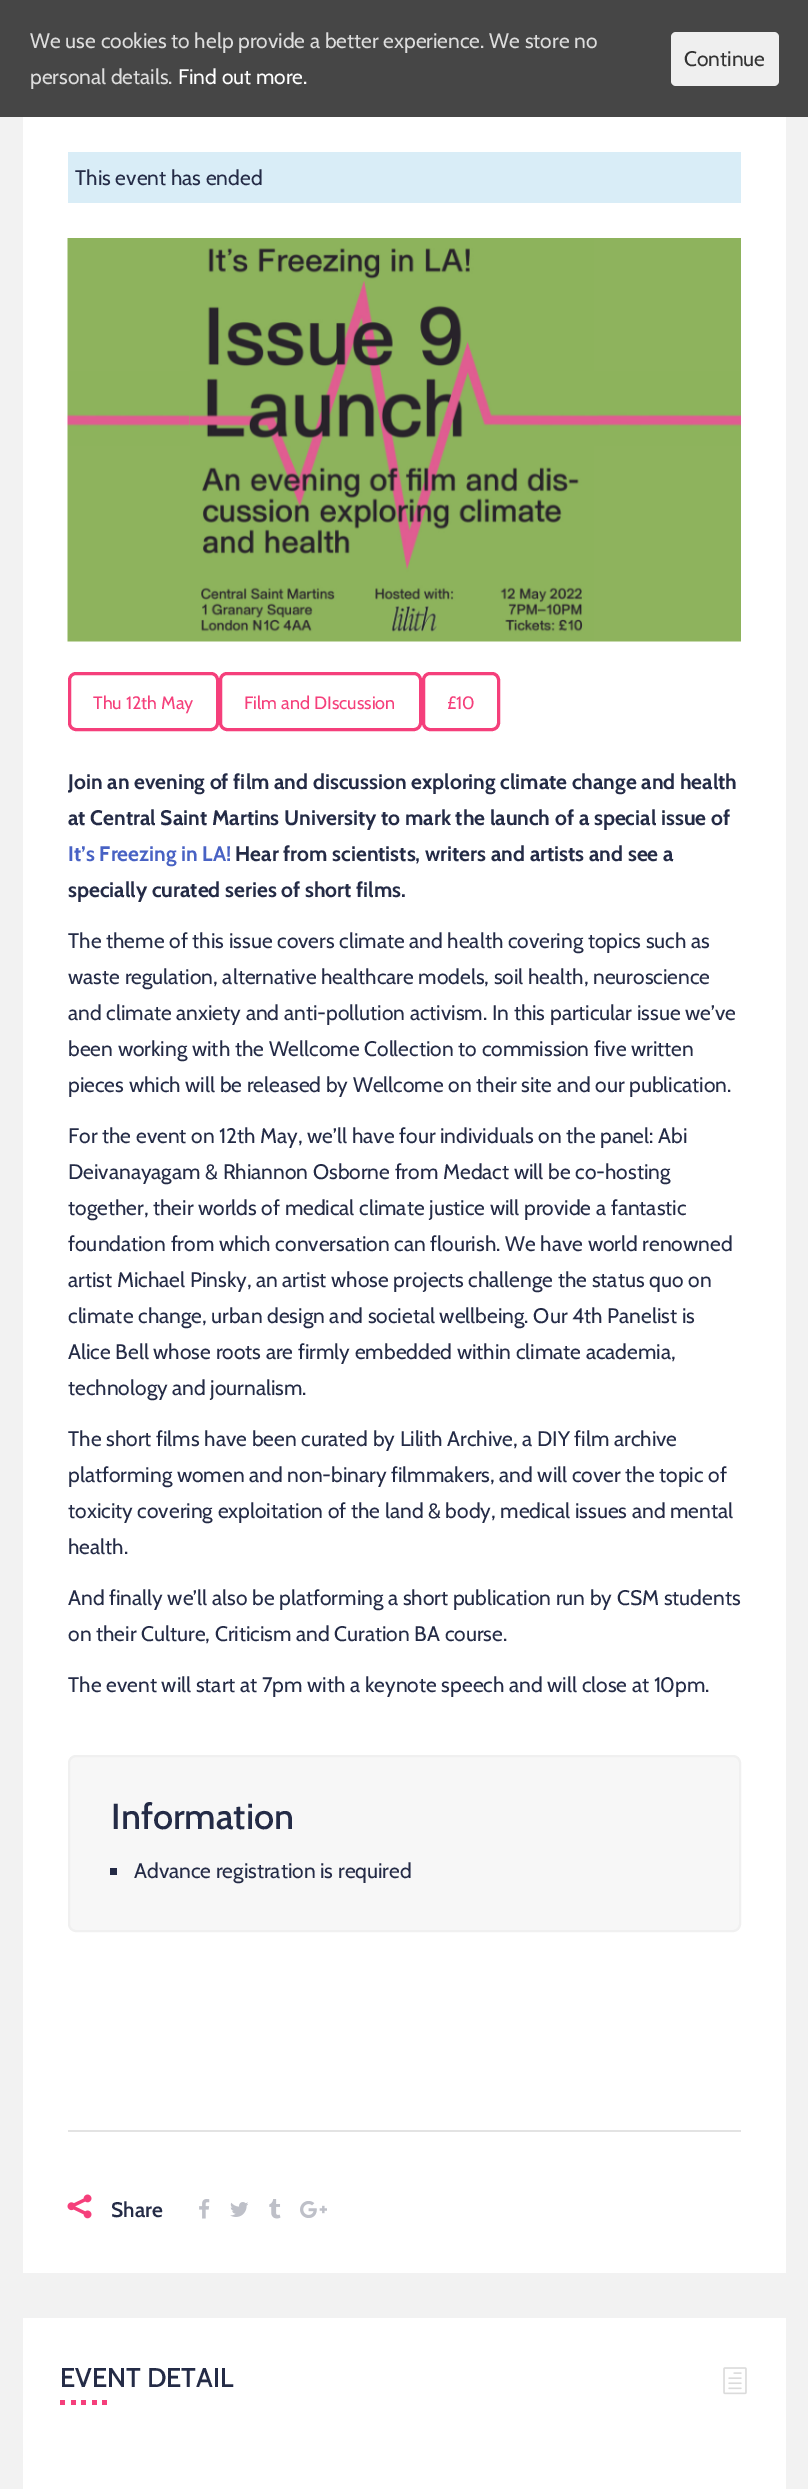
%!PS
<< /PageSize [808 2489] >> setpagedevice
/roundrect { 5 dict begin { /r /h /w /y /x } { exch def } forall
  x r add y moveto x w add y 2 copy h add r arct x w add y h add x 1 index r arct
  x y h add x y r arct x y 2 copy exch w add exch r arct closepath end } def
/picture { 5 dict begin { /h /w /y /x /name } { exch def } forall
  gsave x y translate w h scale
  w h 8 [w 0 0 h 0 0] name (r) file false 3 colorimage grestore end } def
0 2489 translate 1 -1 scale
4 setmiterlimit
0.949 setgray
0 0 808 2489 rectfill
0.275 setgray
0 0 808 117 rectfill
/Cabin-Regular [21 0 0 -21 0 0] selectfont
0.867 setgray
30 48 moveto (We use cookies to help provide a better experience. We store no) show
30 84 moveto (personal details.) show
1 setgray
178 84 moveto (Find out more.) show
0.937 setgray
671 32 108 54 5 roundrect fill
0.2 setgray
684 66 moveto (Continue) show
1 setgray
23 117 763 2156 rectfill
0.851 0.929 0.969 setrgbcolor
68 152 673 51 rectfill
0.141 0.169 0.275 setrgbcolor
75 185 moveto (This event has ended) show
(img1.rgb) 67 238 674 404 picture
0.89 setgray
68 2130 673 2 rectfill
0.961 0.247 0.482 setrgbcolor
3 setlinewidth
69.5 673.5 148 56 6.5 roundrect stroke
/Cabin-Regular [18 0 0 -18 0 0] selectfont
93 709 moveto (Thu 12th May) show
220.5 673.5 200 56 6.5 roundrect stroke
244 709 moveto (Film and DIscussion) show
423.5 673.5 75 56 6.5 roundrect stroke
447 709 moveto (£10) show
/Cabin-Bold [21 0 0 -21 0 0] selectfont
0.141 0.169 0.275 setrgbcolor
68 789 moveto (Join an evening of film and discussion exploring climate change and health) show
68 825 moveto (at Central Saint Martins University to mark the launch of a special issue of) show
0.282 0.384 0.769 setrgbcolor
68 861 moveto (It’s Freezing in LA!) show
0.141 0.169 0.275 setrgbcolor
235 861 moveto (Hear from scientists, writers and artists and see a) show
68 897 moveto (specially curated series of short films.) show
/Cabin-Regular [21 0 0 -21 0 0] selectfont
68 948 moveto (The theme of this issue covers climate and health covering topics such as) show
68 984 moveto (waste regulation, alternative healthcare models, soil health, neuroscience) show
68 1020 moveto (and climate anxiety and anti-pollution activism. In this particular issue we’ve) show
68 1056 moveto (been working with the Wellcome Collection to commission five written) show
68 1092 moveto (pieces which will be released by Wellcome on their site and our publication.) show
68 1143 moveto (For the event on 12th May, we’ll have four individuals on the panel: Abi) show
68 1179 moveto (Deivanayagam & Rhiannon Osborne from Medact will be co-hosting) show
68 1215 moveto (together, their worlds of medical climate justice will provide a fantastic) show
68 1251 moveto (foundation from which conversation can flourish. We have world renowned) show
68 1287 moveto (artist Michael Pinsky, an artist whose projects challenge the status quo on) show
68 1323 moveto (climate change, urban design and societal wellbeing. Our 4th Panelist is) show
68 1359 moveto (Alice Bell whose roots are firmly embedded within climate academia,) show
68 1395 moveto (technology and journalism.) show
68 1446 moveto (The short films have been curated by Lilith Archive, a DIY film archive) show
68 1482 moveto (platforming women and non-binary filmmakers, and will cover the topic of) show
68 1518 moveto (toxicity covering exploitation of the land & body, medical issues and mental) show
68 1554 moveto (health.) show
68 1605 moveto (And finally we’ll also be platforming a short publication run by CSM students) show
68 1641 moveto (on their Culture, Criticism and Curation BA course.) show
68 1692 moveto (The event will start at 7pm with a keynote speech and will close at 10pm.) show
0.969 setgray
69 1756 671 175 7 roundrect gsave fill grestore
0.941 setgray
2 setlinewidth
stroke
/Cabin-Medium [36 0 0 -36 0 0] selectfont
0.141 0.169 0.275 setrgbcolor
111 1829 moveto (Information) show
110 1868 7 7 rectfill
/Cabin-Regular [21 0 0 -21 0 0] selectfont
134 1878 moveto (Advance registration is required) show
(img2.rgb) 67 2194 25 25 picture
/Cabin-SemiBold [21 0 0 -21 0 0] selectfont
111 2217 moveto (Share) show
(img3.rgb) 199 2199 11 20 picture
(img4.rgb) 230 2202 18 15 picture
(img5.rgb) 269 2199 12 20 picture
(img6.rgb) 300 2201 27 17 picture
1 setgray
23 2318 763 171 rectfill
/Cabin-Medium [27 0 0 -27 0 0] selectfont
0.141 0.169 0.275 setrgbcolor
60 2387 moveto (EVENT DETAIL) show
(img7.rgb) 723 2367 24 28 picture
0.961 0.247 0.482 setrgbcolor
60 2400 5 5 rectfill
71 2400 5 5 rectfill
81 2400 5 5 rectfill
92 2400 5 5 rectfill
102 2400 5 5 rectfill
showpage
